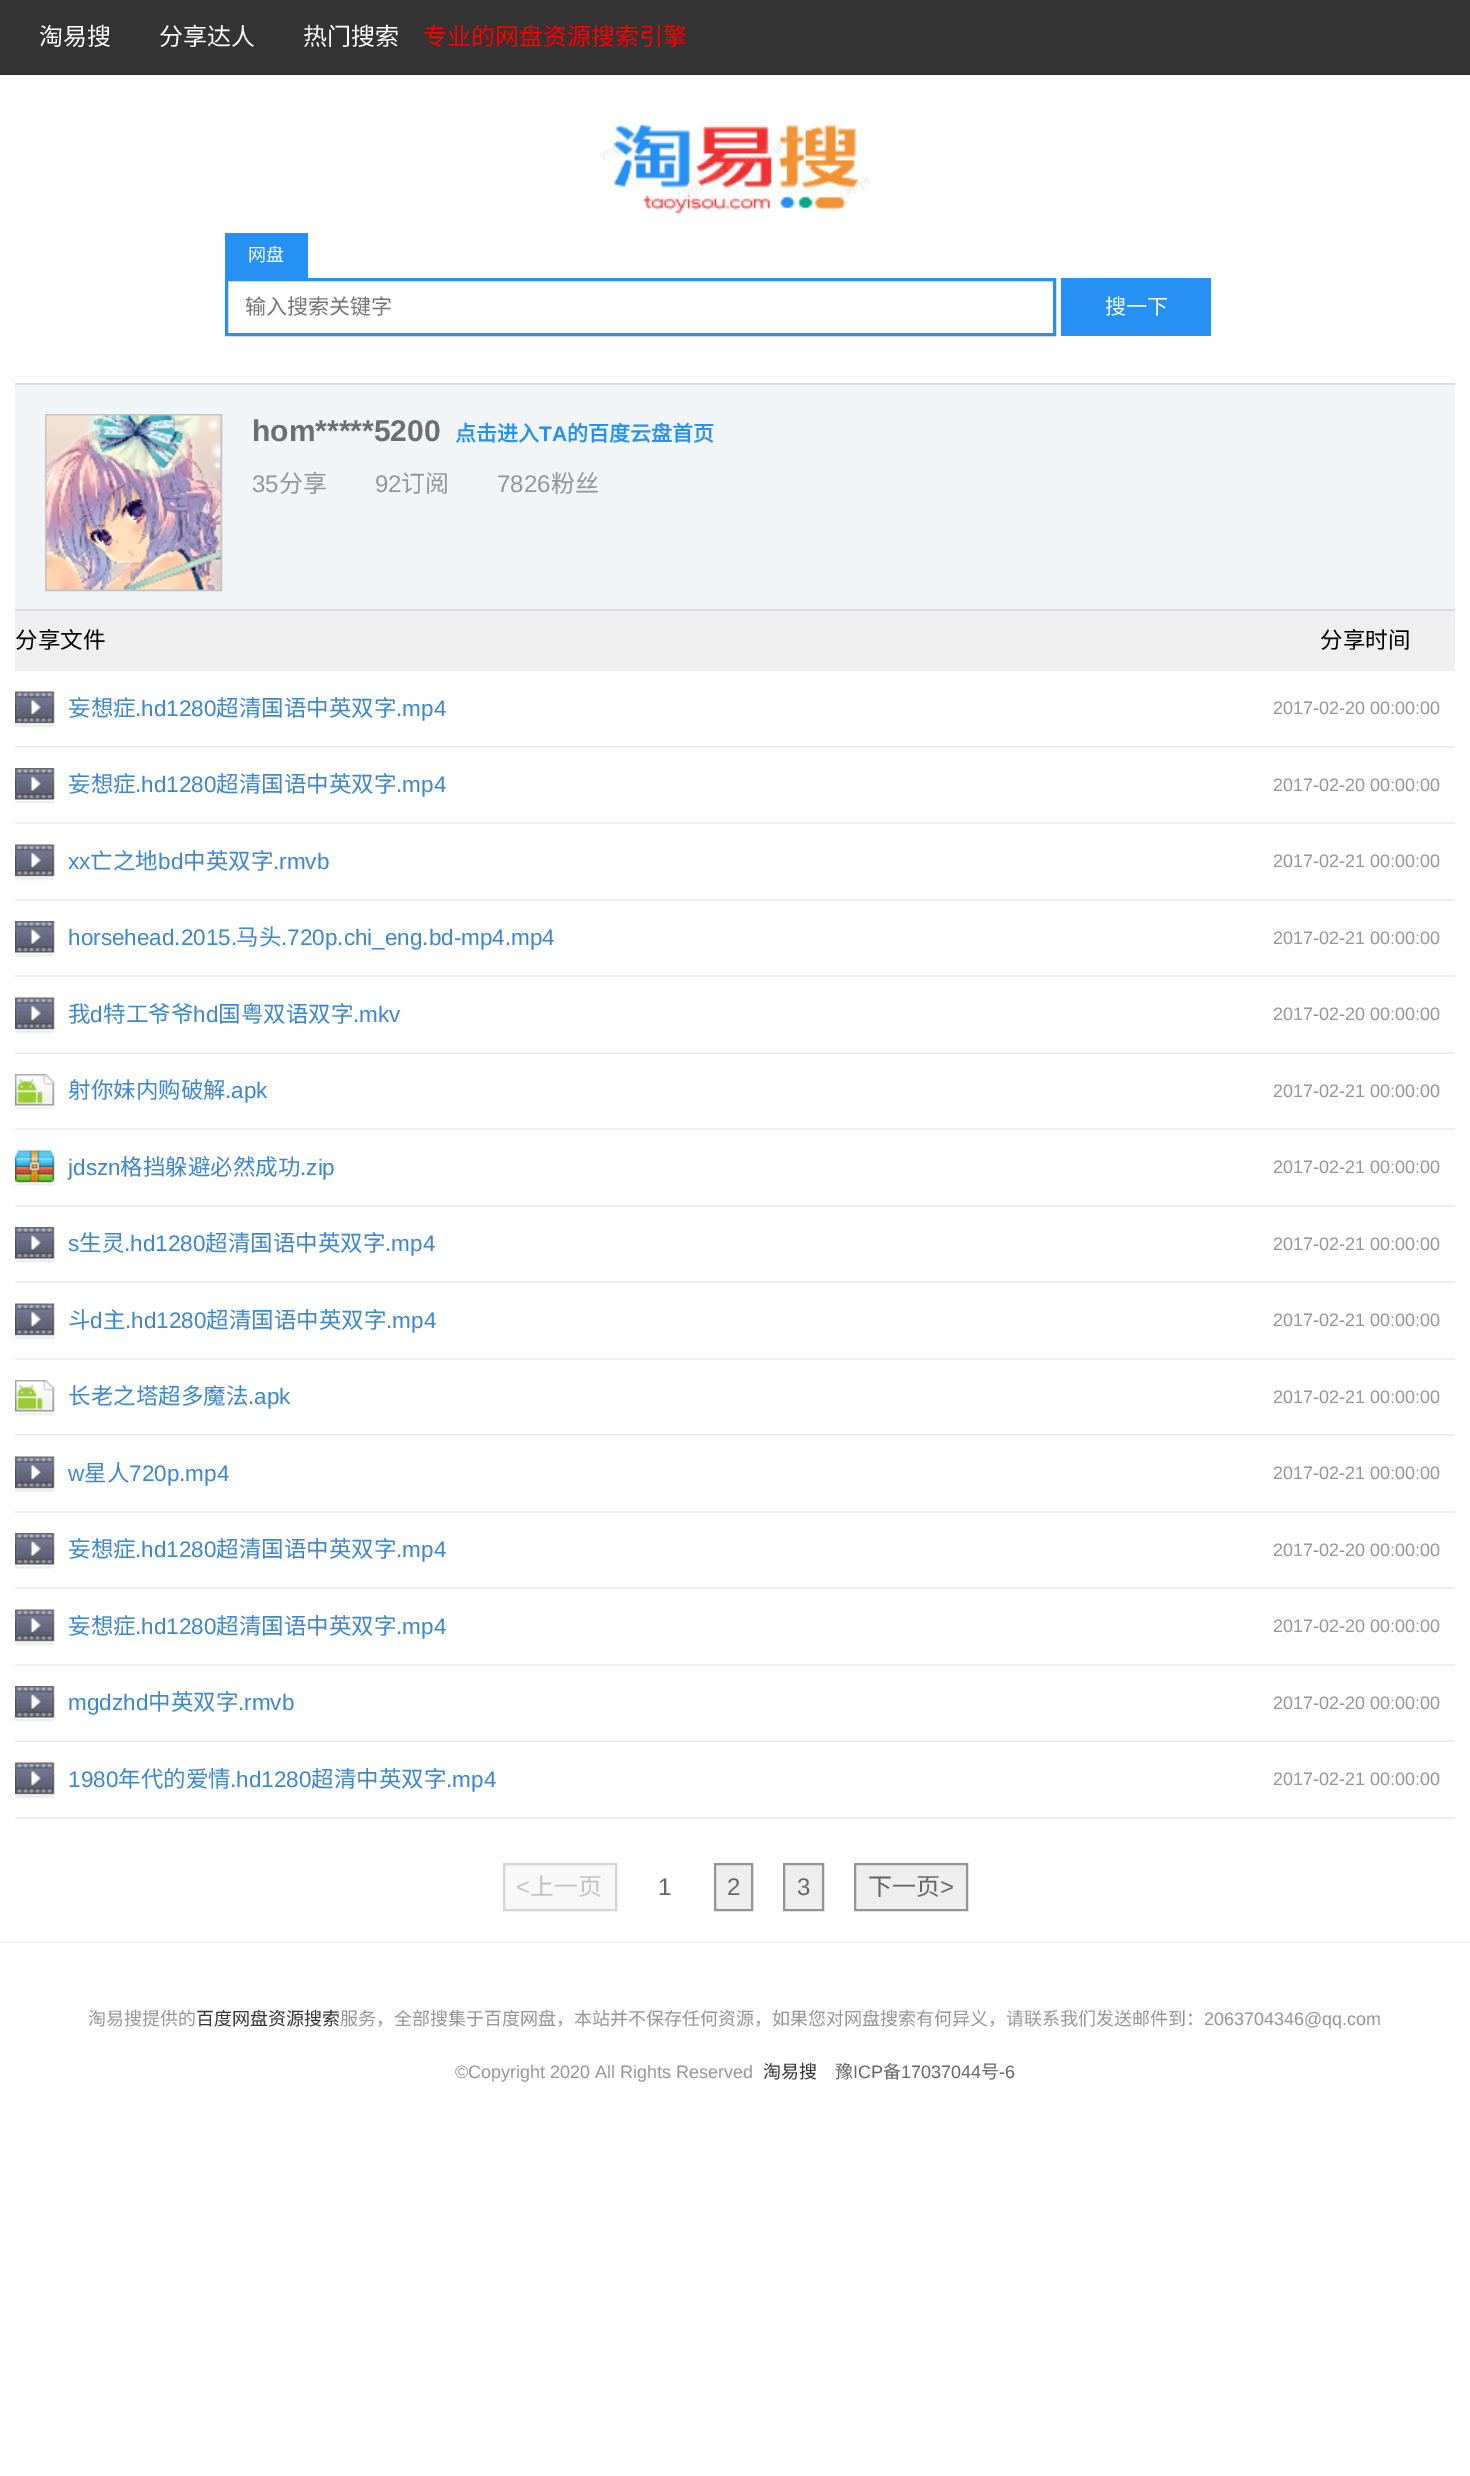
%!PS
<< /PageSize [1470 2476] >> setpagedevice
/picture { 5 dict begin { /h /w /y /x /name } { exch def } forall
  gsave x y translate w h scale
  w h 8 [w 0 0 h 0 0] name (r) file false 3 colorimage grestore end } def
0 2476 translate 1 -1 scale
4 setmiterlimit
1 setgray
0 0 1470 2476 rectfill
0.2 setgray
0 0 1470 75 rectfill
/NotoSansCJKSC-Regular [24 0 0 -24 0 0] selectfont
1 setgray
39 45 moveto (淘易搜) show
159 45 moveto (分享达人) show
303 45 moveto (热门搜索) show
1 0 0 setrgbcolor
423 45 moveto (专业的网盘资源搜索引擎) show
(img1.rgb) 600 124 270 89 picture
0.149 0.569 0.953 setrgbcolor
225 233 83 45 rectfill
/NotoSansCJKSC-Regular [18 0 0 -18 0 0] selectfont
1 setgray
248 261 moveto (网盘) show
0.149 0.569 0.953 setrgbcolor
3 setlinewidth
226.5 279.5 828 55 rectstroke
/NotoSansCJKSC-Regular [21 0 0 -21 0 0] selectfont
0.459 setgray
245 314 moveto (输入搜索关键字) show
0.149 0.569 0.953 setrgbcolor
1061 278 150 58 rectfill
1 setgray
1105 314 moveto (搜一下) show
0.945 0.961 0.973 setrgbcolor
15 385 1440 224 rectfill
0.859 0.855 0.875 setrgbcolor
15 383 1440 2 rectfill
15 609 1440 2 rectfill
0.761 setgray
2 setlinewidth
46 415 175 175 rectstroke
(img2.rgb) 46 415 175 175 picture
/LiberationSans-Bold [30 0 0 -30 0 0] selectfont
0.431 setgray
252 441 moveto (hom*****5200) show
/NotoSansCJKSC-Bold [21 0 0 -21 0 0] selectfont
0.149 0.569 0.953 setrgbcolor
455 441 moveto (点击进入) show
/LiberationSans-Bold [21 0 0 -21 0 0] selectfont
539 441 moveto (TA) show
/NotoSansCJKSC-Bold [21 0 0 -21 0 0] selectfont
567 441 moveto (的百度云盘首页) show
/LiberationSans-Regular [24 0 0 -24 0 0] selectfont
0.584 setgray
252 492 moveto (35) show
/NotoSansCJKSC-Regular [24 0 0 -24 0 0] selectfont
279 492 moveto (分享) show
/LiberationSans-Regular [24 0 0 -24 0 0] selectfont
375 492 moveto (92) show
/NotoSansCJKSC-Regular [24 0 0 -24 0 0] selectfont
401 492 moveto (订阅) show
/LiberationSans-Regular [24 0 0 -24 0 0] selectfont
497 492 moveto (7826) show
/NotoSansCJKSC-Regular [24 0 0 -24 0 0] selectfont
551 492 moveto (粉丝) show
0.937 setgray
15 611 1440 60 rectfill
/NotoSansCJKSC-Regular [22.5 0 0 -22.5 0 0] selectfont
0 setgray
15 648 moveto (分享文件) show
1320 648 moveto (分享时间) show
0.937 setgray
15 746 1440 2 rectfill
(img3.rgb) 15 691 40 37 picture
0.239 0.529 0.812 setrgbcolor
68 716 moveto (妄想症) show
/LiberationSans-Regular [22.5 0 0 -22.5 0 0] selectfont
135 716 moveto (.hd1280) show
/NotoSansCJKSC-Regular [22.5 0 0 -22.5 0 0] selectfont
216 716 moveto (超清国语中英双字) show
/LiberationSans-Regular [22.5 0 0 -22.5 0 0] selectfont
396 716 moveto (.mp4) show
/LiberationSans-Regular [18 0 0 -18 0 0] selectfont
0.584 setgray
1273 714 moveto (2017-02-20 00:00:00) show
0.937 setgray
15 822 1440 2 rectfill
(img4.rgb) 15 768 40 36 picture
/NotoSansCJKSC-Regular [22.5 0 0 -22.5 0 0] selectfont
0.239 0.529 0.812 setrgbcolor
68 792 moveto (妄想症) show
/LiberationSans-Regular [22.5 0 0 -22.5 0 0] selectfont
135 792 moveto (.hd1280) show
/NotoSansCJKSC-Regular [22.5 0 0 -22.5 0 0] selectfont
216 792 moveto (超清国语中英双字) show
/LiberationSans-Regular [22.5 0 0 -22.5 0 0] selectfont
396 792 moveto (.mp4) show
/LiberationSans-Regular [18 0 0 -18 0 0] selectfont
0.584 setgray
1273 791 moveto (2017-02-20 00:00:00) show
0.937 setgray
15 899 1440 2 rectfill
(img3.rgb) 15 844 40 37 picture
/LiberationSans-Regular [22.5 0 0 -22.5 0 0] selectfont
0.239 0.529 0.812 setrgbcolor
68 869 moveto (xx) show
/NotoSansCJKSC-Regular [22.5 0 0 -22.5 0 0] selectfont
90 869 moveto (亡之地) show
/LiberationSans-Regular [22.5 0 0 -22.5 0 0] selectfont
158 869 moveto (bd) show
/NotoSansCJKSC-Regular [22.5 0 0 -22.5 0 0] selectfont
183 869 moveto (中英双字) show
/LiberationSans-Regular [22.5 0 0 -22.5 0 0] selectfont
273 869 moveto (.rmvb) show
/LiberationSans-Regular [18 0 0 -18 0 0] selectfont
0.584 setgray
1273 867 moveto (2017-02-21 00:00:00) show
0.937 setgray
15 975 1440 2 rectfill
(img4.rgb) 15 921 40 36 picture
/LiberationSans-Regular [22.5 0 0 -22.5 0 0] selectfont
0.239 0.529 0.812 setrgbcolor
68 945 moveto (horsehead.2015.) show
/NotoSansCJKSC-Regular [22.5 0 0 -22.5 0 0] selectfont
236 945 moveto (马头) show
/LiberationSans-Regular [22.5 0 0 -22.5 0 0] selectfont
281 945 moveto (.720p.chi_eng.bd-mp4.mp4) show
/LiberationSans-Regular [18 0 0 -18 0 0] selectfont
0.584 setgray
1273 944 moveto (2017-02-21 00:00:00) show
0.937 setgray
15 1052 1440 2 rectfill
(img3.rgb) 15 997 40 37 picture
/NotoSansCJKSC-Regular [22.5 0 0 -22.5 0 0] selectfont
0.239 0.529 0.812 setrgbcolor
68 1022 moveto (我) show
/LiberationSans-Regular [22.5 0 0 -22.5 0 0] selectfont
90 1022 moveto (d) show
/NotoSansCJKSC-Regular [22.5 0 0 -22.5 0 0] selectfont
103 1022 moveto (特工爷爷) show
/LiberationSans-Regular [22.5 0 0 -22.5 0 0] selectfont
193 1022 moveto (hd) show
/NotoSansCJKSC-Regular [22.5 0 0 -22.5 0 0] selectfont
218 1022 moveto (国粤双语双字) show
/LiberationSans-Regular [22.5 0 0 -22.5 0 0] selectfont
353 1022 moveto (.mkv) show
/LiberationSans-Regular [18 0 0 -18 0 0] selectfont
0.584 setgray
1273 1020 moveto (2017-02-20 00:00:00) show
0.937 setgray
15 1128 1440 2 rectfill
(img5.rgb) 15 1074 40 36 picture
/NotoSansCJKSC-Regular [22.5 0 0 -22.5 0 0] selectfont
0.239 0.529 0.812 setrgbcolor
68 1098 moveto (射你妹内购破解) show
/LiberationSans-Regular [22.5 0 0 -22.5 0 0] selectfont
225 1098 moveto (.apk) show
/LiberationSans-Regular [18 0 0 -18 0 0] selectfont
0.584 setgray
1273 1097 moveto (2017-02-21 00:00:00) show
0.937 setgray
15 1205 1440 2 rectfill
(img6.rgb) 15 1150 40 36 picture
/LiberationSans-Regular [22.5 0 0 -22.5 0 0] selectfont
0.239 0.529 0.812 setrgbcolor
68 1175 moveto (jdszn) show
/NotoSansCJKSC-Regular [22.5 0 0 -22.5 0 0] selectfont
120 1175 moveto (格挡躲避必然成功) show
/LiberationSans-Regular [22.5 0 0 -22.5 0 0] selectfont
300 1175 moveto (.zip) show
/LiberationSans-Regular [18 0 0 -18 0 0] selectfont
0.584 setgray
1273 1173 moveto (2017-02-21 00:00:00) show
0.937 setgray
15 1281 1440 2 rectfill
(img4.rgb) 15 1227 40 36 picture
/LiberationSans-Regular [22.5 0 0 -22.5 0 0] selectfont
0.239 0.529 0.812 setrgbcolor
68 1251 moveto (s) show
/NotoSansCJKSC-Regular [22.5 0 0 -22.5 0 0] selectfont
79 1251 moveto (生灵) show
/LiberationSans-Regular [22.5 0 0 -22.5 0 0] selectfont
124 1251 moveto (.hd1280) show
/NotoSansCJKSC-Regular [22.5 0 0 -22.5 0 0] selectfont
205 1251 moveto (超清国语中英双字) show
/LiberationSans-Regular [22.5 0 0 -22.5 0 0] selectfont
385 1251 moveto (.mp4) show
/LiberationSans-Regular [18 0 0 -18 0 0] selectfont
0.584 setgray
1273 1250 moveto (2017-02-21 00:00:00) show
0.937 setgray
15 1358 1440 2 rectfill
(img3.rgb) 15 1303 40 37 picture
/NotoSansCJKSC-Regular [22.5 0 0 -22.5 0 0] selectfont
0.239 0.529 0.812 setrgbcolor
68 1328 moveto (斗) show
/LiberationSans-Regular [22.5 0 0 -22.5 0 0] selectfont
90 1328 moveto (d) show
/NotoSansCJKSC-Regular [22.5 0 0 -22.5 0 0] selectfont
103 1328 moveto (主) show
/LiberationSans-Regular [22.5 0 0 -22.5 0 0] selectfont
125 1328 moveto (.hd1280) show
/NotoSansCJKSC-Regular [22.5 0 0 -22.5 0 0] selectfont
206 1328 moveto (超清国语中英双字) show
/LiberationSans-Regular [22.5 0 0 -22.5 0 0] selectfont
386 1328 moveto (.mp4) show
/LiberationSans-Regular [18 0 0 -18 0 0] selectfont
0.584 setgray
1273 1326 moveto (2017-02-21 00:00:00) show
0.937 setgray
15 1434 1440 2 rectfill
(img5.rgb) 15 1380 40 36 picture
/NotoSansCJKSC-Regular [22.5 0 0 -22.5 0 0] selectfont
0.239 0.529 0.812 setrgbcolor
68 1404 moveto (长老之塔超多魔法) show
/LiberationSans-Regular [22.5 0 0 -22.5 0 0] selectfont
248 1404 moveto (.apk) show
/LiberationSans-Regular [18 0 0 -18 0 0] selectfont
0.584 setgray
1273 1403 moveto (2017-02-21 00:00:00) show
0.937 setgray
15 1511 1440 2 rectfill
(img3.rgb) 15 1456 40 37 picture
/LiberationSans-Regular [22.5 0 0 -22.5 0 0] selectfont
0.239 0.529 0.812 setrgbcolor
68 1481 moveto (w) show
/NotoSansCJKSC-Regular [22.5 0 0 -22.5 0 0] selectfont
84 1481 moveto (星人) show
/LiberationSans-Regular [22.5 0 0 -22.5 0 0] selectfont
129 1481 moveto (720p.mp4) show
/LiberationSans-Regular [18 0 0 -18 0 0] selectfont
0.584 setgray
1273 1479 moveto (2017-02-21 00:00:00) show
0.937 setgray
15 1587 1440 2 rectfill
(img4.rgb) 15 1533 40 36 picture
/NotoSansCJKSC-Regular [22.5 0 0 -22.5 0 0] selectfont
0.239 0.529 0.812 setrgbcolor
68 1557 moveto (妄想症) show
/LiberationSans-Regular [22.5 0 0 -22.5 0 0] selectfont
135 1557 moveto (.hd1280) show
/NotoSansCJKSC-Regular [22.5 0 0 -22.5 0 0] selectfont
216 1557 moveto (超清国语中英双字) show
/LiberationSans-Regular [22.5 0 0 -22.5 0 0] selectfont
396 1557 moveto (.mp4) show
/LiberationSans-Regular [18 0 0 -18 0 0] selectfont
0.584 setgray
1273 1556 moveto (2017-02-20 00:00:00) show
0.937 setgray
15 1664 1440 2 rectfill
(img3.rgb) 15 1609 40 37 picture
/NotoSansCJKSC-Regular [22.5 0 0 -22.5 0 0] selectfont
0.239 0.529 0.812 setrgbcolor
68 1634 moveto (妄想症) show
/LiberationSans-Regular [22.5 0 0 -22.5 0 0] selectfont
135 1634 moveto (.hd1280) show
/NotoSansCJKSC-Regular [22.5 0 0 -22.5 0 0] selectfont
216 1634 moveto (超清国语中英双字) show
/LiberationSans-Regular [22.5 0 0 -22.5 0 0] selectfont
396 1634 moveto (.mp4) show
/LiberationSans-Regular [18 0 0 -18 0 0] selectfont
0.584 setgray
1273 1632 moveto (2017-02-20 00:00:00) show
0.937 setgray
15 1740 1440 2 rectfill
(img4.rgb) 15 1686 40 36 picture
/LiberationSans-Regular [22.5 0 0 -22.5 0 0] selectfont
0.239 0.529 0.812 setrgbcolor
68 1710 moveto (mgdzhd) show
/NotoSansCJKSC-Regular [22.5 0 0 -22.5 0 0] selectfont
148 1710 moveto (中英双字) show
/LiberationSans-Regular [22.5 0 0 -22.5 0 0] selectfont
238 1710 moveto (.rmvb) show
/LiberationSans-Regular [18 0 0 -18 0 0] selectfont
0.584 setgray
1273 1709 moveto (2017-02-20 00:00:00) show
0.937 setgray
15 1817 1440 2 rectfill
(img3.rgb) 15 1762 40 37 picture
/LiberationSans-Regular [22.5 0 0 -22.5 0 0] selectfont
0.239 0.529 0.812 setrgbcolor
68 1787 moveto (1980) show
/NotoSansCJKSC-Regular [22.5 0 0 -22.5 0 0] selectfont
118 1787 moveto (年代的爱情) show
/LiberationSans-Regular [22.5 0 0 -22.5 0 0] selectfont
230 1787 moveto (.hd1280) show
/NotoSansCJKSC-Regular [22.5 0 0 -22.5 0 0] selectfont
311 1787 moveto (超清中英双字) show
/LiberationSans-Regular [22.5 0 0 -22.5 0 0] selectfont
446 1787 moveto (.mp4) show
/LiberationSans-Regular [18 0 0 -18 0 0] selectfont
0.584 setgray
1273 1785 moveto (2017-02-21 00:00:00) show
0.973 setgray
newpath 504 1864 moveto 616 1864 lineto 616 1910 lineto 504 1910 lineto closepath gsave fill grestore
0.835 setgray
stroke
/LiberationSans-Regular [24 0 0 -24 0 0] selectfont
0.761 setgray
516 1895 moveto (<) show
/NotoSansCJKSC-Regular [24 0 0 -24 0 0] selectfont
530 1895 moveto (上一页) show
/LiberationSans-Regular [24 0 0 -24 0 0] selectfont
0.4 setgray
658 1895 moveto (1) show
0.933 setgray
newpath 715 1864 moveto 752 1864 lineto 752 1910 lineto 715 1910 lineto closepath gsave fill grestore
0.584 setgray
stroke
0.4 setgray
727 1895 moveto (2) show
0.933 setgray
newpath 784 1864 moveto 823 1864 lineto 823 1910 lineto 784 1910 lineto closepath gsave fill grestore
0.584 setgray
stroke
0.4 setgray
797 1895 moveto (3) show
0.933 setgray
newpath 855 1864 moveto 967 1864 lineto 967 1910 lineto 855 1910 lineto closepath gsave fill grestore
0.584 setgray
stroke
/NotoSansCJKSC-Regular [24 0 0 -24 0 0] selectfont
0.4 setgray
868 1895 moveto (下一页) show
/LiberationSans-Regular [24 0 0 -24 0 0] selectfont
940 1895 moveto (>) show
0.961 setgray
0 1941 1470 2 rectfill
/NotoSansCJKSC-Regular [18 0 0 -18 0 0] selectfont
0.584 setgray
88 2025 moveto (淘易搜提供的) show
0.2 setgray
196 2025 moveto (百度网盘资源搜索) show
0.584 setgray
340 2025 moveto (服务，全部搜集于百度网盘，本站并不保存任何资源，如果您对网盘搜索有何异义，请联系我们发送邮件到：) show
/LiberationSans-Regular [18 0 0 -18 0 0] selectfont
1204 2025 moveto (2063704346@qq.com) show
455 2078 moveto (©Copyright 2020 All Rights Reserved) show
/NotoSansCJKSC-Regular [18 0 0 -18 0 0] selectfont
0.2 setgray
763 2078 moveto (淘易搜) show
0.4 setgray
835 2078 moveto (豫) show
/LiberationSans-Regular [18 0 0 -18 0 0] selectfont
853 2078 moveto (ICP) show
/NotoSansCJKSC-Regular [18 0 0 -18 0 0] selectfont
883 2078 moveto (备) show
/LiberationSans-Regular [18 0 0 -18 0 0] selectfont
901 2078 moveto (17037044) show
/NotoSansCJKSC-Regular [18 0 0 -18 0 0] selectfont
981 2078 moveto (号) show
/LiberationSans-Regular [18 0 0 -18 0 0] selectfont
999 2078 moveto (-6) show
showpage
